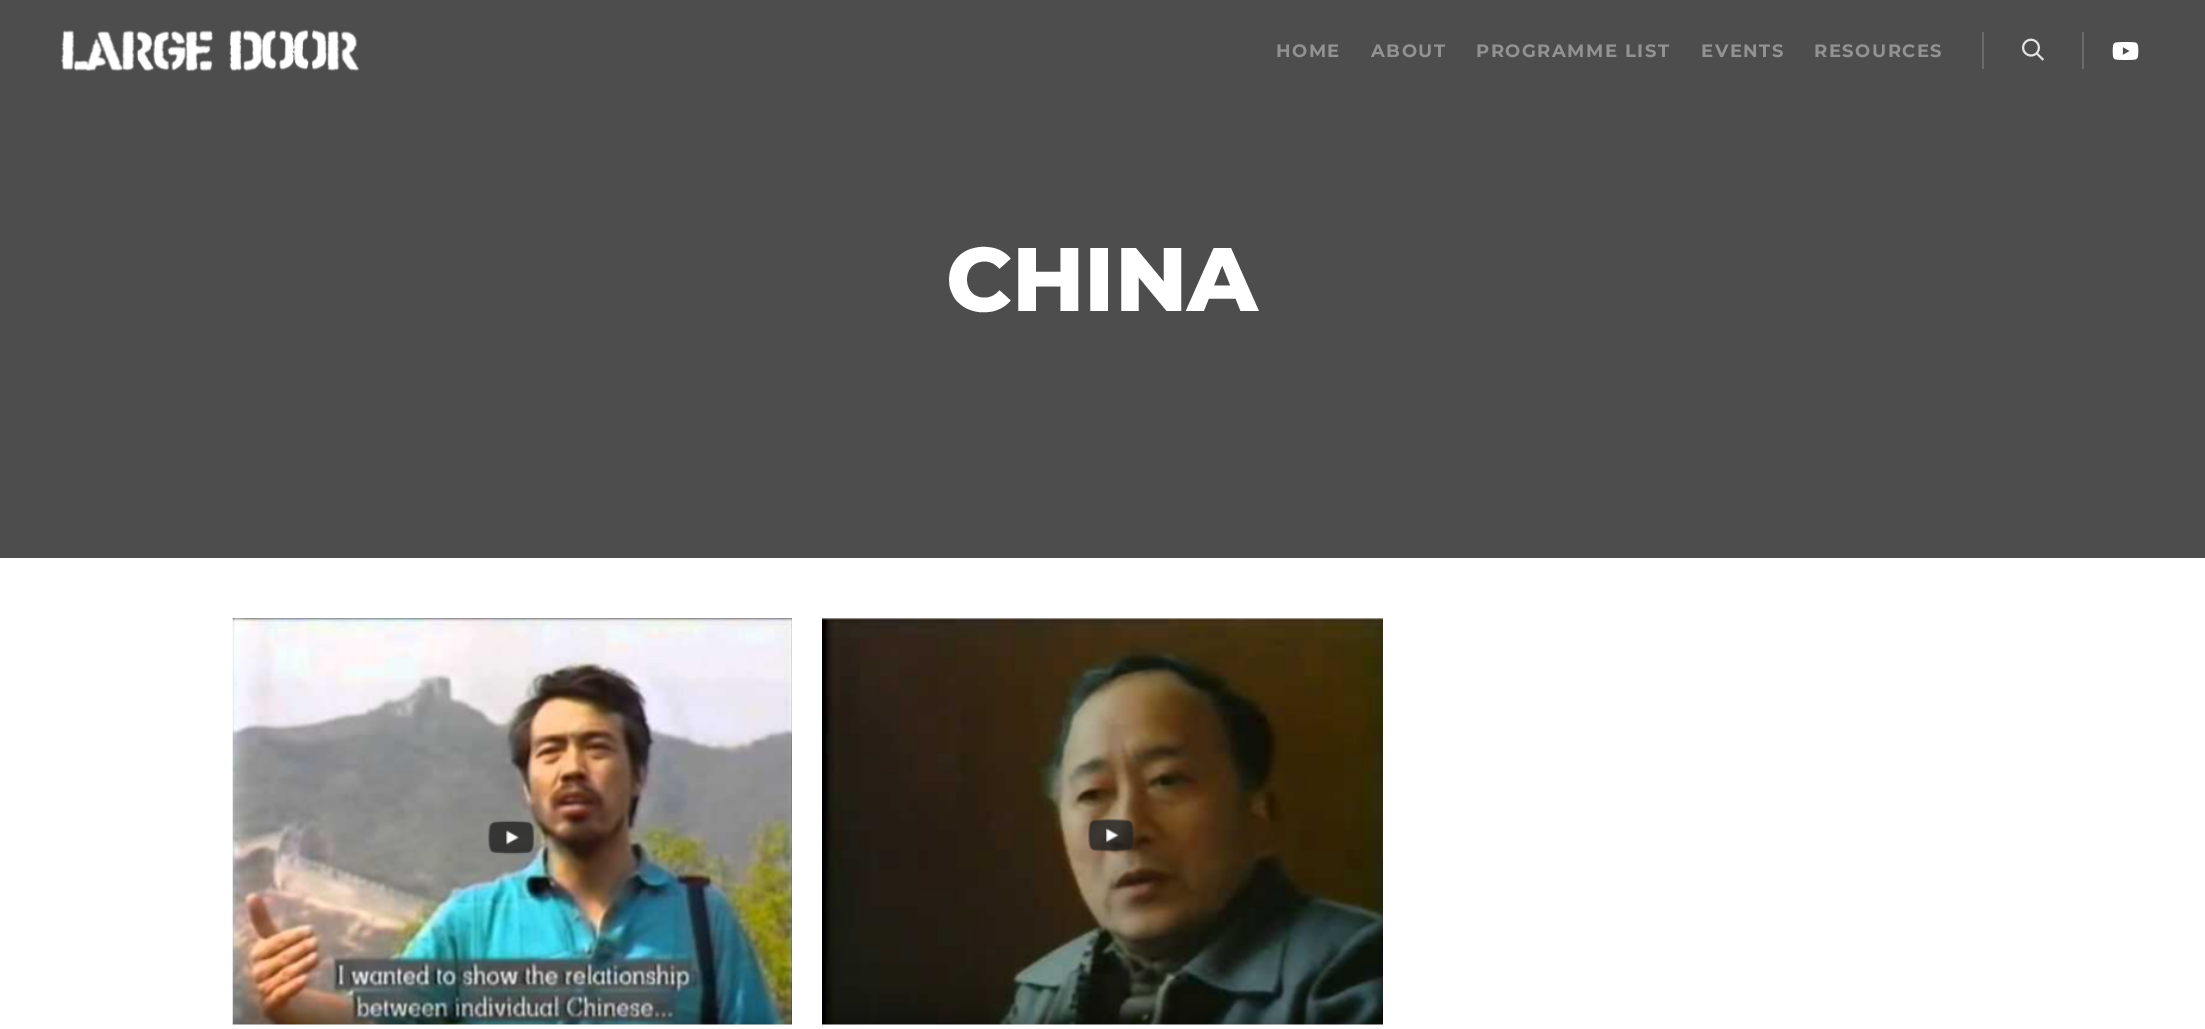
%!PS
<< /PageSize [2205 1029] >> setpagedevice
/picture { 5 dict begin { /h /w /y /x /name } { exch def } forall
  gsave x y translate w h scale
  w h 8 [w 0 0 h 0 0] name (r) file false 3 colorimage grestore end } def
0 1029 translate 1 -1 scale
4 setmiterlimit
1 setgray
0 0 2205 1029 rectfill
0.302 setgray
0 0 2205 558 rectfill
(img1.rgb) 61 29 299 43 picture
/Montserrat-Bold [18 0 0 -18 0 0] selectfont
0.573 setgray
1276 57 moveto 1.5 0 (HOME) ashow
1371 57 moveto 1.5 0 (ABOUT) ashow
1476 57 moveto 1.5 0 (PROGRAMME LIST) ashow
1701 57 moveto 1.5 0 (EVENTS) ashow
1814 57 moveto 1.5 0 (RESOURCES) ashow
0.42 setgray
1982 32 2 37 rectfill
(img2.rgb) 2022 38 22 23 picture
2082 32 2 37 rectfill
(img3.rgb) 2112 42 27 18 picture
/Montserrat-ExtraBold [90 0 0 -90 0 0] selectfont
1 setgray
946 311 moveto (CHINA) show
(img4.rgb) 232 618 560 407 picture
(img5.rgb) 822 618 561 407 picture
showpage
